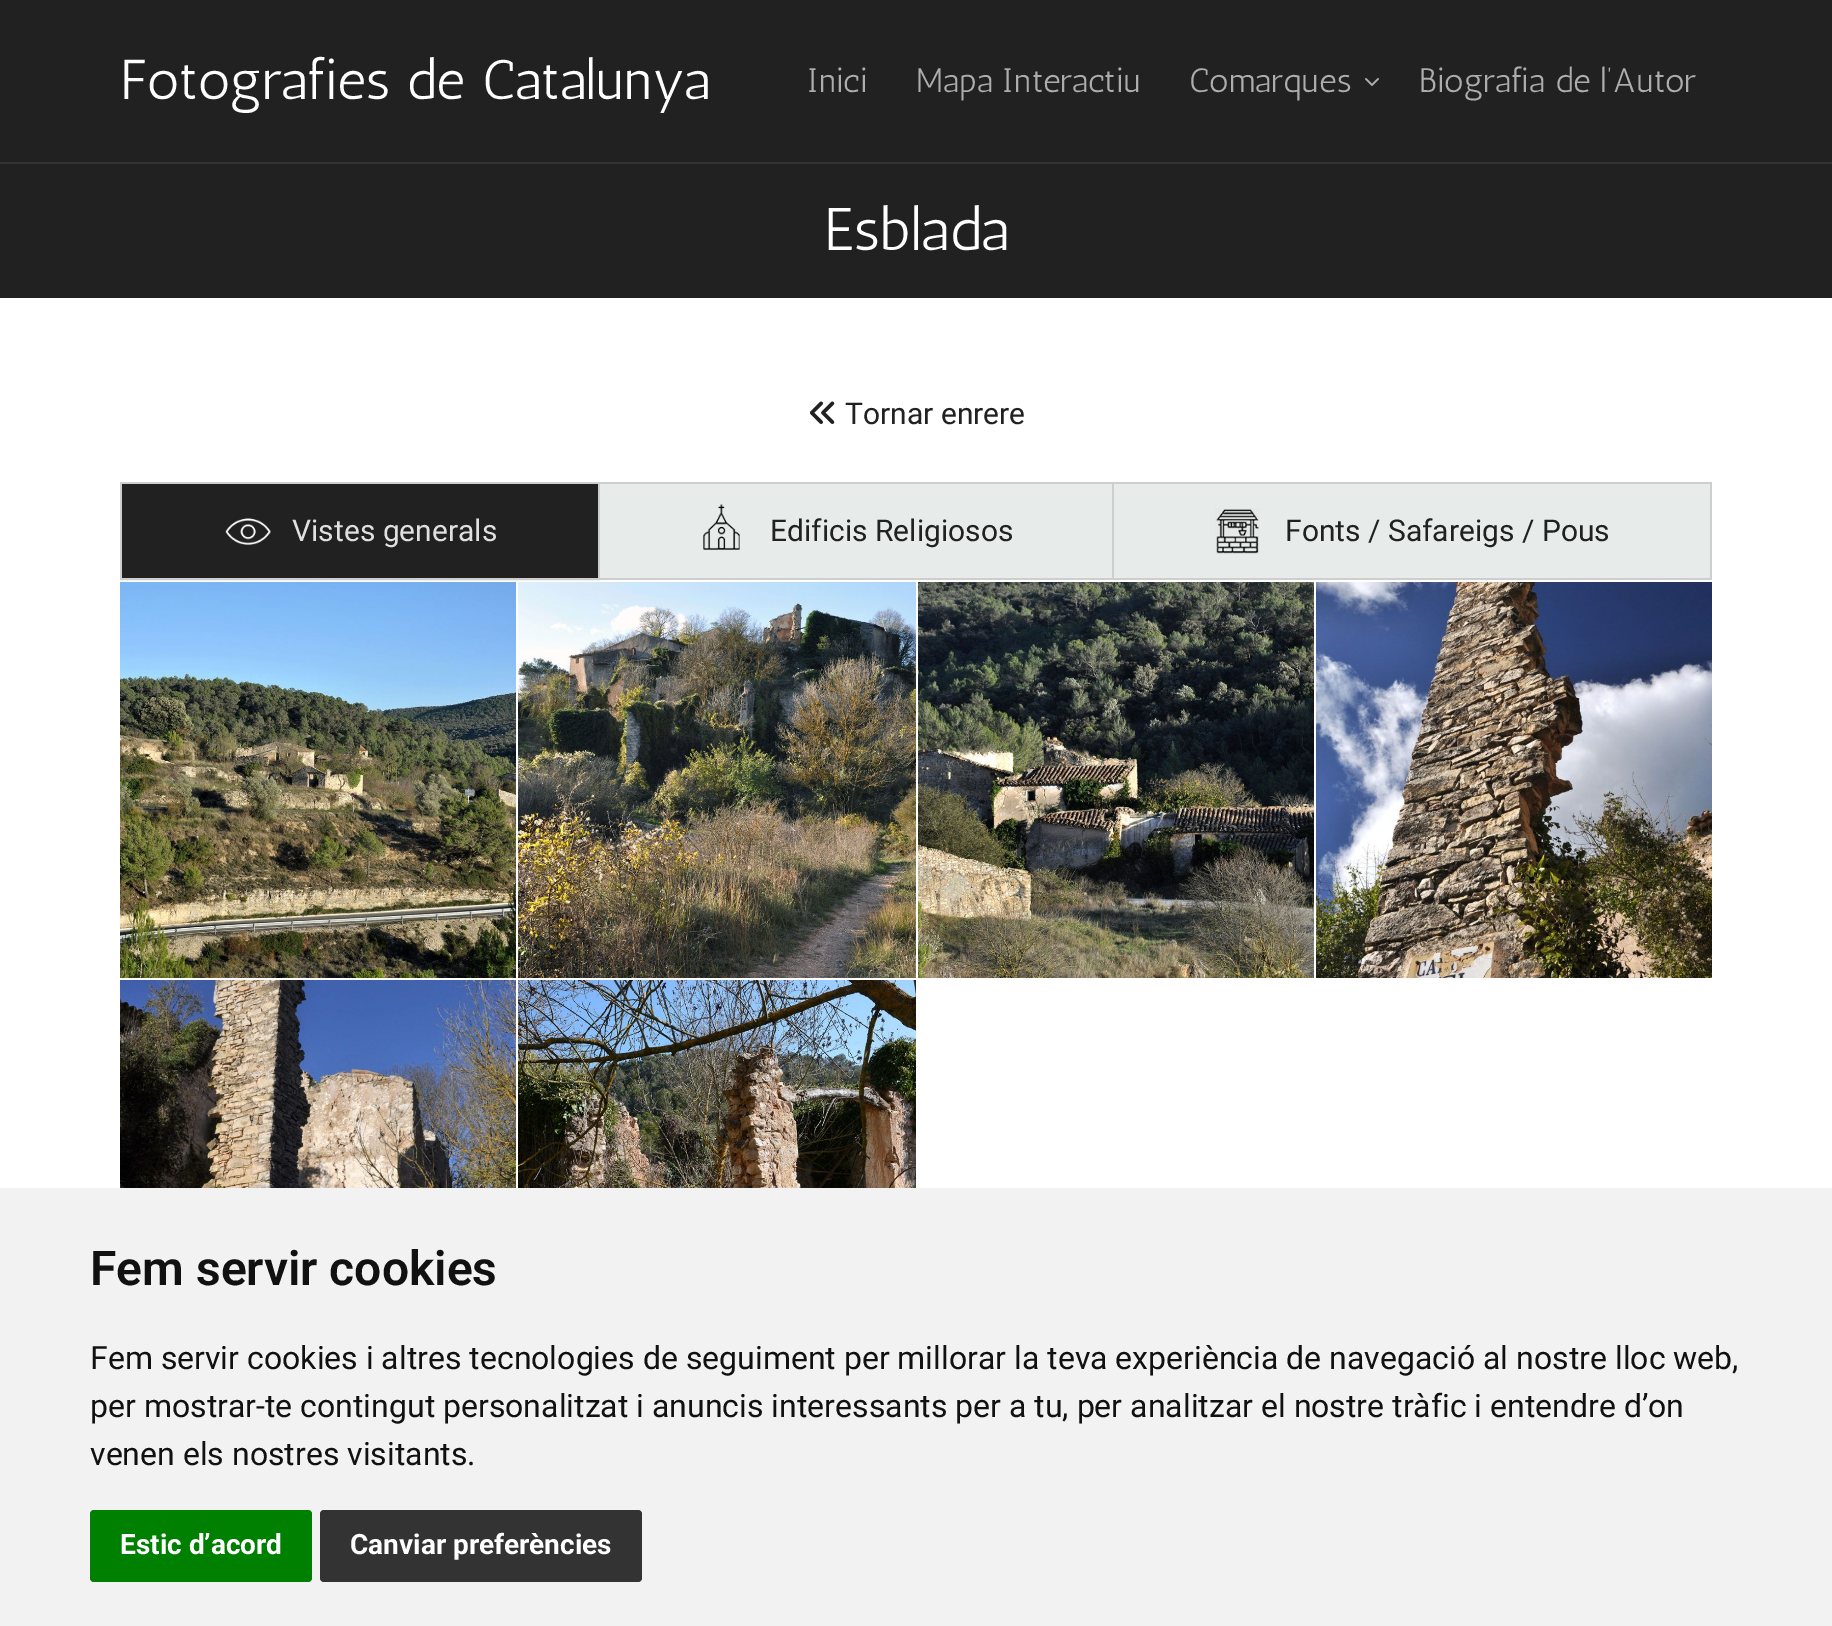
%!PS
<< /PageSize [1832 1626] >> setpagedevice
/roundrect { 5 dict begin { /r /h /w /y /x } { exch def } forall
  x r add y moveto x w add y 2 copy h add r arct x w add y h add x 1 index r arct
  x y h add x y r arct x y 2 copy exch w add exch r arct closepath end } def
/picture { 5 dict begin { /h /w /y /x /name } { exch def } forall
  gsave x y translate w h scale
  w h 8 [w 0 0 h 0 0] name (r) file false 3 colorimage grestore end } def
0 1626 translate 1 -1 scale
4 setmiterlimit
1 setgray
0 0 1832 1626 rectfill
0.129 setgray
0 0 1832 162 rectfill
0.2 setgray
0 162 1832 2 rectfill
/Antic-Regular [56 0 0 -56 0 0] selectfont
1 setgray
120 99 moveto (Fotografies de Catalunya) show
/Antic-Regular [34 0 0 -34 0 0] selectfont
0.678 setgray
807 92 moveto (Inici) show
916 92 moveto (Mapa Interactiu) show
1189 92 moveto (Comarques) show
(img1.rgb) 1365 78 14 8 picture
1419 92 moveto (Biografia de l’Autor) show
0.129 setgray
0 164 1832 134 rectfill
/Antic-Regular [60 0 0 -60 0 0] selectfont
1 setgray
824 250 moveto (Esblada) show
(img2.rgb) 809 401 26 23 picture
/Roboto-Regular [30 0 0 -30 0 0] selectfont
0.129 setgray
845 424 moveto (Tornar enrere) show
0.808 setgray
2 setlinewidth
121 483 478 96 rectstroke
0.129 setgray
122 484 476 94 rectfill
(img3.rgb) 225 518 46 27 picture
0.878 setgray
292 541 moveto (Vistes generals) show
0.906 0.925 0.918 setrgbcolor
600 484 512 94 rectfill
0.808 setgray
600 482 1112 2 rectfill
1112 482 2 98 rectfill
600 578 514 2 rectfill
(img4.rgb) 703 504 37 46 picture
0.129 setgray
770 541 moveto (Edificis Religiosos) show
0.906 0.925 0.918 setrgbcolor
1114 484 596 94 rectfill
0.808 setgray
1710 482 2 98 rectfill
1114 578 598 2 rectfill
(img5.rgb) 1215 508 45 46 picture
0.129 setgray
1285 541 moveto (Fonts / Safareigs / Pous) show
(img6.rgb) 120 582 396 396 picture
(img7.rgb) 518 582 398 396 picture
(img8.rgb) 918 582 396 396 picture
(img9.rgb) 1316 582 396 396 picture
(img10.rgb) 120 980 396 208 picture
(img11.rgb) 518 980 398 208 picture
0.949 setgray
0 1188 1832 438 rectfill
/Roboto-SemiBold [48 0 0 -48 0 0] selectfont
0.067 setgray
90 1285 moveto (Fem servir cookies) show
/Roboto-Regular [32 0 0 -32 0 0] selectfont
90 1369 moveto (Fem servir cookies i altres tecnologies de seguiment per millorar la teva experiència de navegació al nostre lloc web,) show
90 1417 moveto (per mostrar-te contingut personalitzat i anuncis interessants per a tu, per analitzar el nostre tràfic i entendre d’on) show
90 1465 moveto (venen els nostres visitants.) show
0 0.502 0 setrgbcolor
90 1510 222 72 4 roundrect fill
/Roboto-Bold [28 0 0 -28 0 0] selectfont
1 setgray
120 1554 moveto (Estic d’acord) show
0.2 setgray
320 1510 322 72 4 roundrect fill
1 setgray
350 1554 moveto (Canviar preferències) show
showpage
